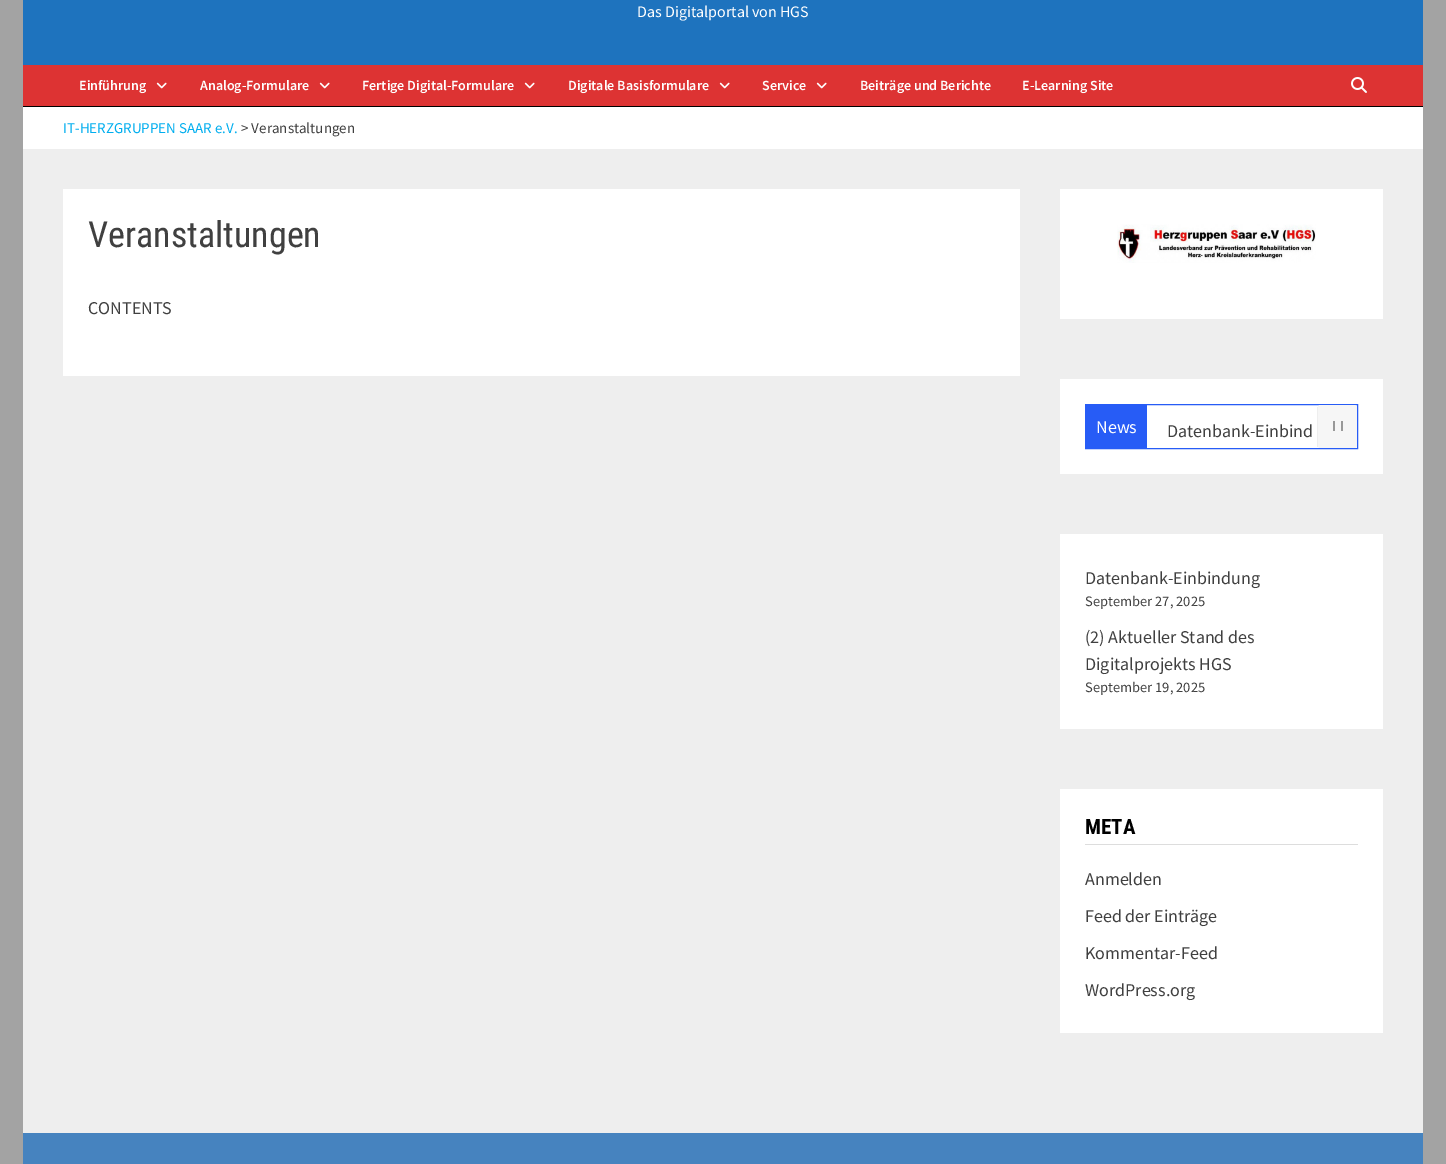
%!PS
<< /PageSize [1446 1164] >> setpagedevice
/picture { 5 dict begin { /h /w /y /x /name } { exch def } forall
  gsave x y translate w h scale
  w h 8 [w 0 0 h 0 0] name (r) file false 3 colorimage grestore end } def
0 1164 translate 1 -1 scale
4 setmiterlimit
0.639 setgray
0 0 1446 1164 rectfill
1 setgray
23 107 1400 42 rectfill
0.118 0.451 0.745 setrgbcolor
23 0 1400 65 rectfill
0 setgray
23 106 1400 1 rectfill
/SourceSansPro-Regular [16 0 0 -16 0 0] selectfont
1 setgray
637 17 moveto (Das Digitalportal von HGS) show
0.867 0.2 0.2 setrgbcolor
23 65 1400 41 rectfill
/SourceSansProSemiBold-SemiBold [14 0 0 -14 0 0] selectfont
1 setgray
79 90 moveto (Einführung) show
(img1.rgb) 156 82 11 7 picture
200 90 moveto (Analog-Formulare) show
(img1.rgb) 319 82 11 7 picture
362 90 moveto (Fertige Digital-Formulare) show
(img1.rgb) 524 82 11 7 picture
568 90 moveto (Digitale Basisformulare) show
(img1.rgb) 719 82 11 7 picture
762 90 moveto (Service) show
(img1.rgb) 816 82 11 7 picture
860 90 moveto (Beiträge und Berichte) show
1022 90 moveto (E-Learning Site) show
(img2.rgb) 1351 77 16 16 picture
/SourceSansPro-Regular [15 0 0 -15 0 0] selectfont
0 0.682 0.937 setrgbcolor
63 133 moveto (IT-HERZGRUPPEN SAAR e.V.) show
0.251 setgray
241 133 moveto (> Veranstaltungen) show
0.933 setgray
23 149 1400 984 rectfill
1 setgray
63 189 957 187 rectfill
/RobotoCondensed-Regular [36 0 0 -36 0 0] selectfont
0.251 setgray
88 247 moveto (Veranstaltungen) show
/SourceSansPro-Regular [18 0 0 -18 0 0] selectfont
88 314 moveto (CONTENTS) show
1 setgray
1060 189 323 130 rectfill
(img3.rgb) 1117 224 199 39 picture
1060 379 323 95 rectfill
0.153 0.361 0.965 setrgbcolor
1085.5 404.5 272 44 rectstroke
1086 405 61 43 rectfill
1 setgray
1096 433 moveto (News) show
0.251 setgray
1167 437 moveto (Datenbank-Einbind) show
0.965 setgray
newpath 1320 405 moveto 1354 405 lineto 1356 405 1357 406 1357 408 curveto 1357 445 lineto 1357 447 1356 448 1354 448 curveto 1320 448 lineto 1319 448 1318 447 1318 445 curveto 1318 408 lineto 1318 406 1319 405 1320 405 curveto closepath fill
0.933 setgray
1317 407 1 40 rectfill
0.6 setgray
1341 421 2 10 rectfill
1333 421 2 10 rectfill
1 setgray
1060 534 323 195 rectfill
0.251 setgray
1085 584 moveto (Datenbank-Einbindung) show
/SourceSansPro-Regular [14.5 0 0 -14.5 0 0] selectfont
1085 606 moveto (September 27, 2025) show
/SourceSansPro-Regular [18 0 0 -18 0 0] selectfont
1085 643 moveto (\(2\) Aktueller Stand des) show
1085 670 moveto (Digitalprojekts HGS) show
/SourceSansPro-Regular [14.5 0 0 -14.5 0 0] selectfont
1085 692 moveto (September 19, 2025) show
1 setgray
1060 789 323 244 rectfill
0.867 setgray
1085 844 273 1 rectfill
/RobotoCondensed-Bold [21 0 0 -21 0 0] selectfont
0 setgray
1085 834 moveto (META) show
/SourceSansPro-Regular [18 0 0 -18 0 0] selectfont
0.251 setgray
1085 885 moveto (Anmelden) show
1085 922 moveto (Feed der Einträge) show
1085 959 moveto (Kommentar-Feed) show
1085 996 moveto (WordPress.org) show
0.275 0.514 0.749 setrgbcolor
23 1133 1400 31 rectfill
showpage
